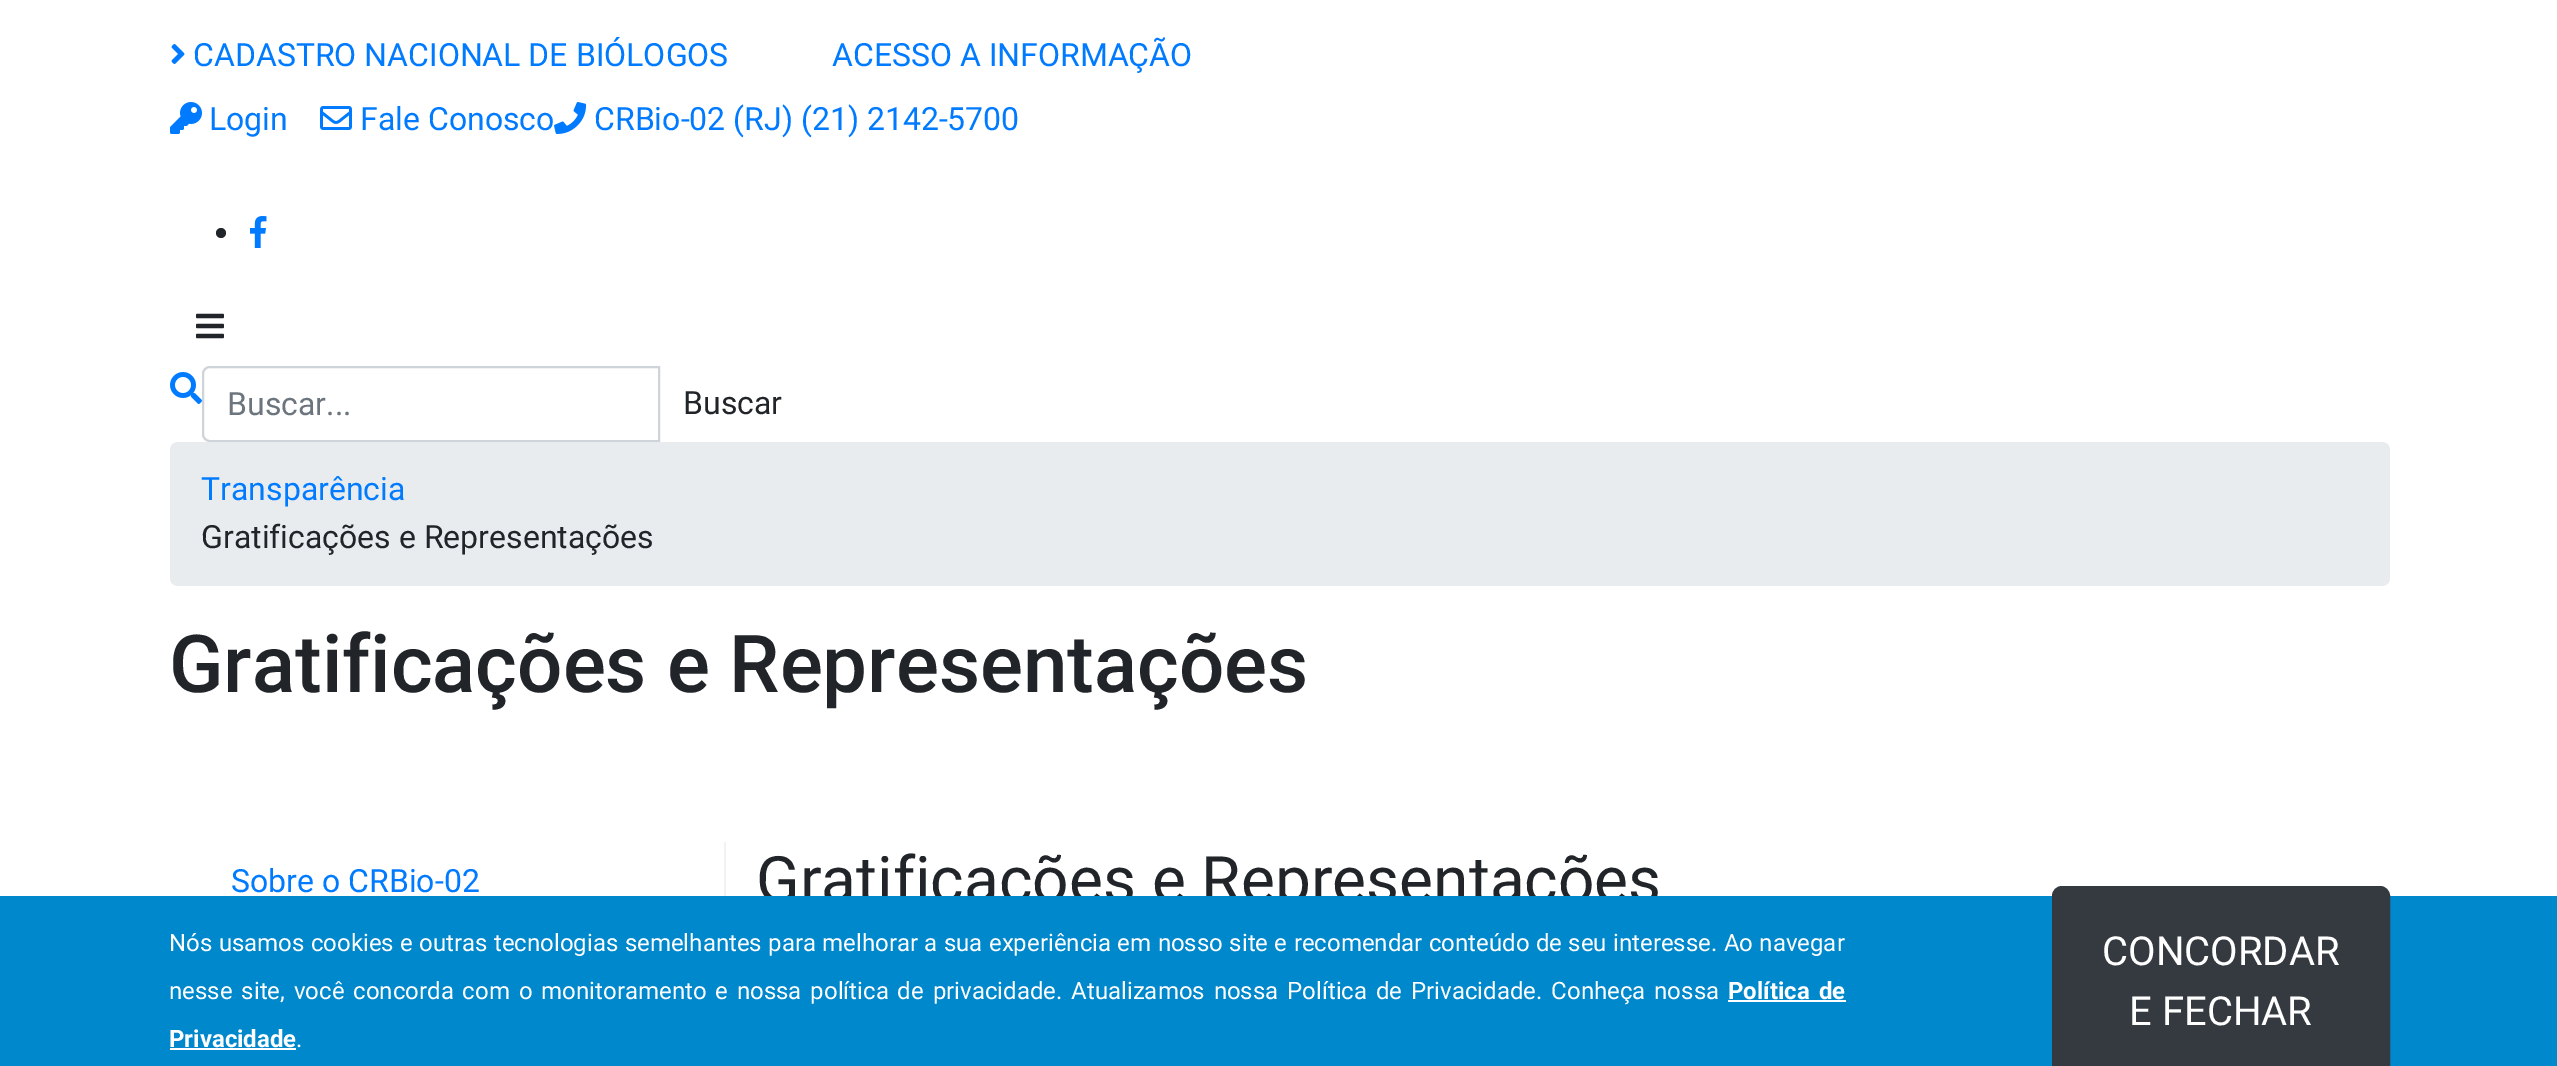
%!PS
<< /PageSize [2557 1066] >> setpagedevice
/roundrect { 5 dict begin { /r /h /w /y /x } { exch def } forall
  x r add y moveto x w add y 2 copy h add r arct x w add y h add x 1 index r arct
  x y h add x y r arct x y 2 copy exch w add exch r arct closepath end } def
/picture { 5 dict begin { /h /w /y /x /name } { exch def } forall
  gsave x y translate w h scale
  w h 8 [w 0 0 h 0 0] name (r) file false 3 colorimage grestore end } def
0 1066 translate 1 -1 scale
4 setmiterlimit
1 setgray
0 0 2557 1066 rectfill
(img1.rgb) 171 44 14 20 picture
/Roboto-Regular [32 0 0 -32 0 0] selectfont
0 0.482 1 setrgbcolor
193 66 moveto (CADASTRO NACIONAL DE BIÓLOGOS) show
832 66 moveto (ACESSO A INFORMAÇÃO) show
(img2.rgb) 170 102 32 32 picture
209 130 moveto (Login) show
(img3.rgb) 320 106 32 24 picture
360 130 moveto (Fale Conosco) show
(img4.rgb) 554 102 33 32 picture
594 130 moveto (CRBio-02 \(RJ\) \(21\) 2142-5700) show
0.129 0.145 0.161 setrgbcolor
newpath 221 233 5 0 360 arc closepath fill
(img5.rgb) 250 216 17 32 picture
(img6.rgb) 196 313 28 26 picture
(img7.rgb) 170 372 32 32 picture
0.808 0.831 0.855 setrgbcolor
2 setlinewidth
newpath 210 367 moveto 659 367 lineto 659 441 lineto 210 441 lineto 206 441 203 438 203 434 curveto 203 374 lineto 203 370 206 367 210 367 curveto closepath stroke
0.424 0.459 0.49 setrgbcolor
227 415 moveto (Buscar...) show
0.129 0.145 0.161 setrgbcolor
683 414 moveto (Buscar) show
0.914 0.925 0.937 setrgbcolor
170 442 2220 144 8 roundrect fill
0 0.482 1 setrgbcolor
201 500 moveto (Transparência) show
0.129 0.145 0.161 setrgbcolor
201 548 moveto (Gratificações e Representações) show
/Roboto-Medium [80 0 0 -80 0 0] selectfont
169 692 moveto (Gratificações e Representações) show
/Roboto-Regular [32 0 0 -32 0 0] selectfont
0 0.482 1 setrgbcolor
231 892 moveto (Sobre o CRBio-02) show
0.949 setgray
724 842 2 54 rectfill
/Roboto-Regular [64 0 0 -64 0 0] selectfont
0.129 0.145 0.161 setrgbcolor
756 902 moveto (Gratificações e Representações) show
0 0.533 0.8 setrgbcolor
0 896 2557 170 rectfill
/Roboto-Regular [24 0 0 -24 0 0] selectfont
1 setgray
169 951 moveto 0.4 0 32 (Nós usamos cookies e outras tecnologias semelhantes para melhorar a sua experiência em nosso site e recomendar conteúdo de seu interesse. Ao navegar) widthshow
169 999 moveto 2.9 0 32 (nesse site, você concorda com o monitoramento e nossa política de privacidade. Atualizamos nossa Política de Privacidade. Conheça nossa) widthshow
/Roboto-Bold [24 0 0 -24 0 0] selectfont
1728 999 moveto 2.9 0 32 (Política de) widthshow
1728 1000 118 2 rectfill
169 1047 moveto (Privacidade) show
/Roboto-Regular [24 0 0 -24 0 0] selectfont
296 1047 moveto (.) show
170 1048 126 2 rectfill
0.204 0.227 0.251 setrgbcolor
2053 887 336 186 9 roundrect gsave fill grestore
stroke
/Roboto-Regular [40 0 0 -40 0 0] selectfont
1 setgray
2102 965 moveto (CONCORDAR) show
2129 1025 moveto (E FECHAR) show
showpage
